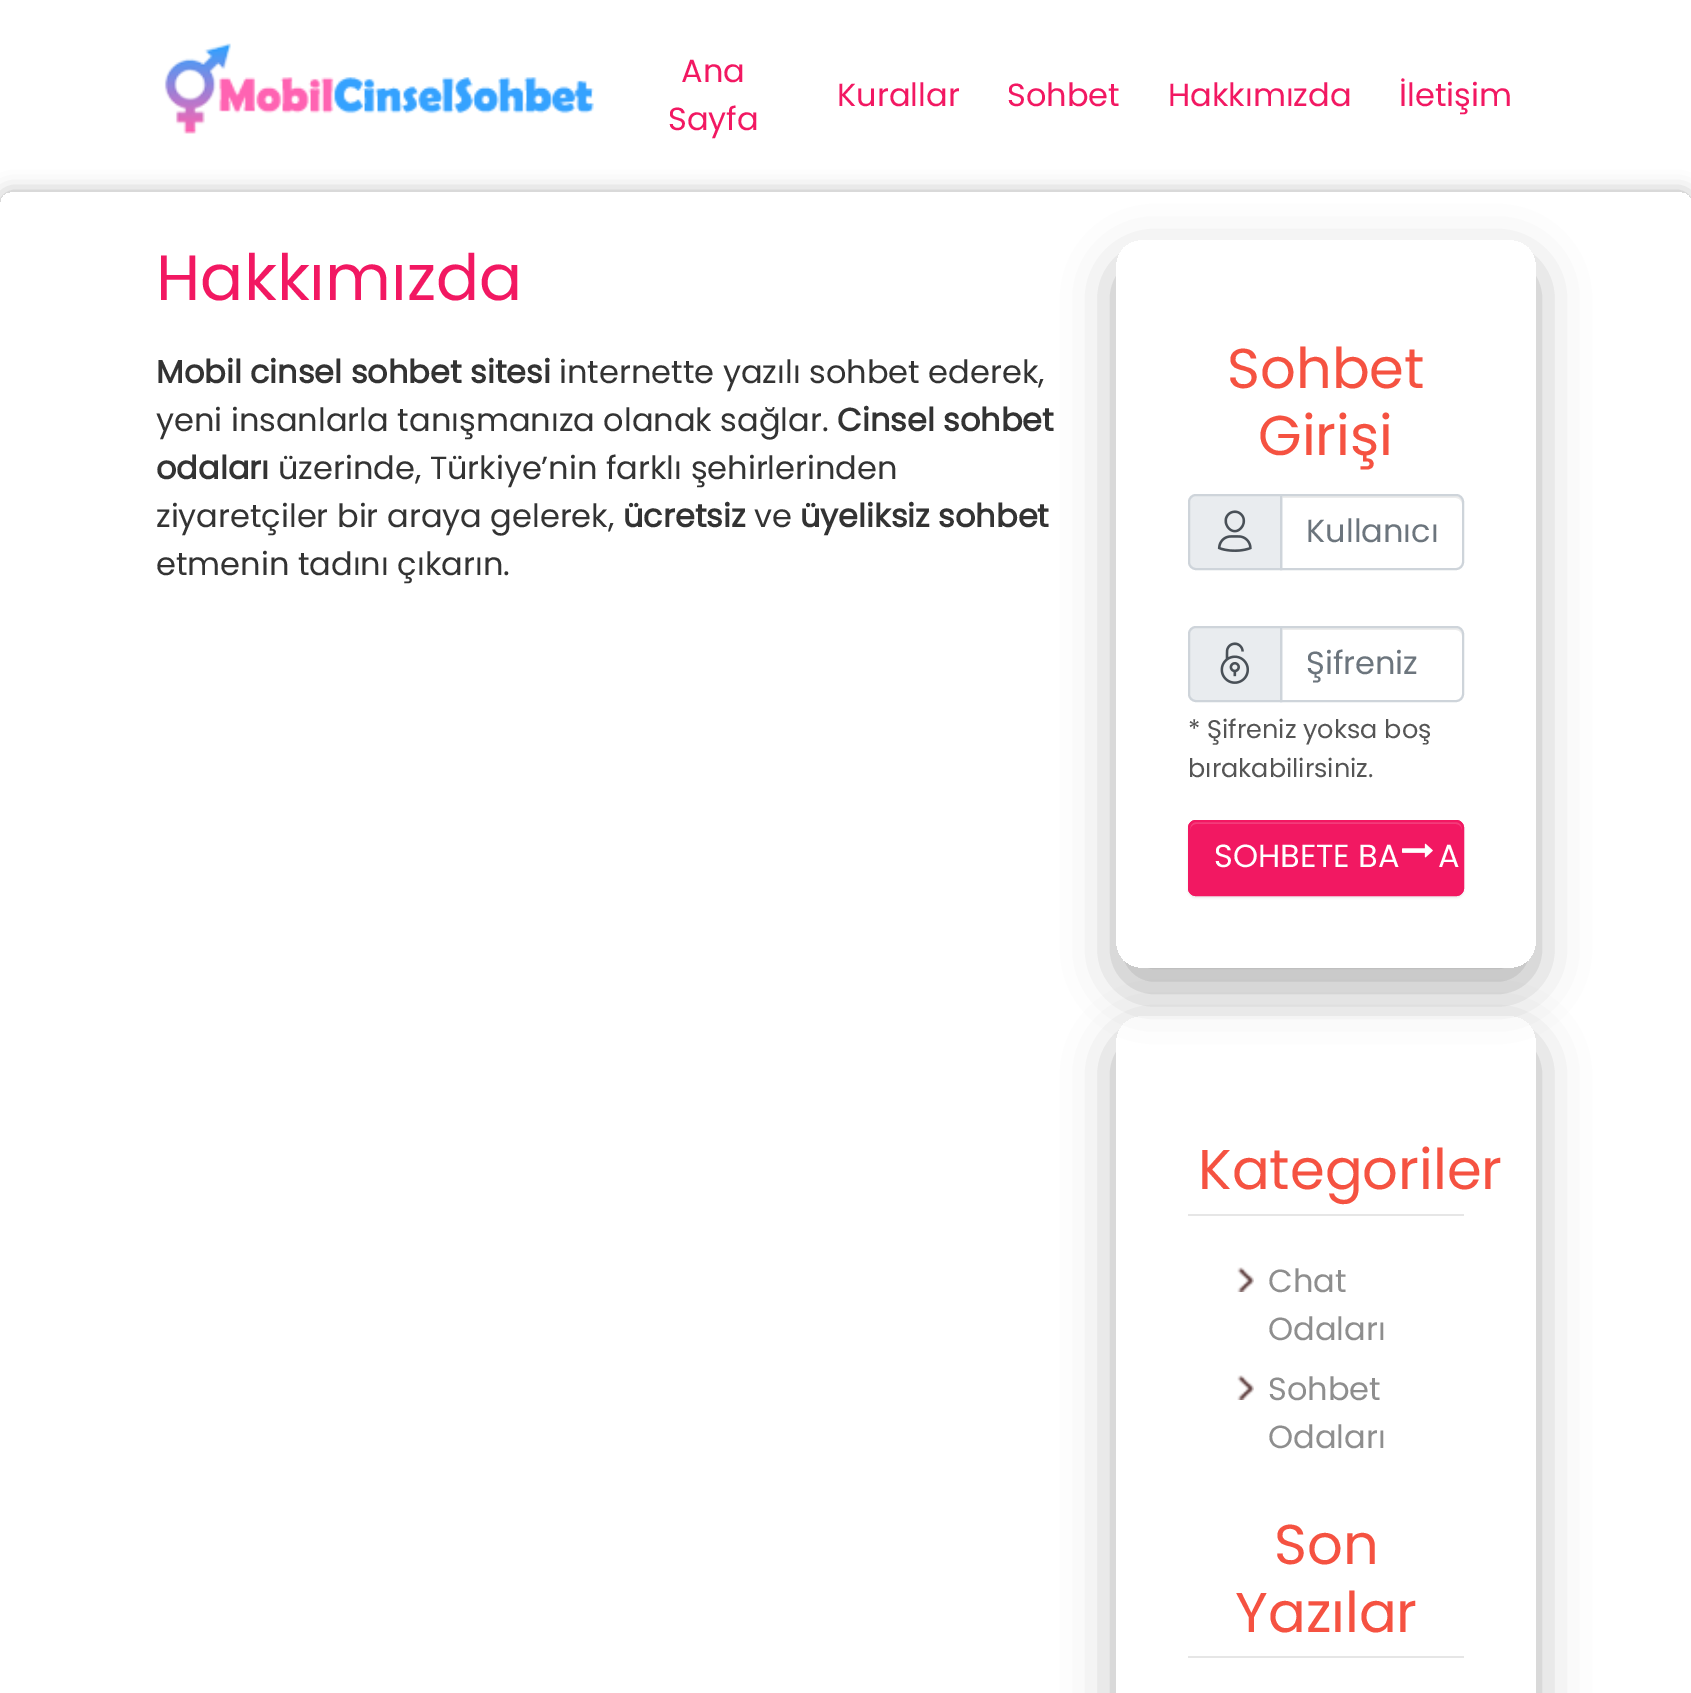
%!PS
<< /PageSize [1691 1693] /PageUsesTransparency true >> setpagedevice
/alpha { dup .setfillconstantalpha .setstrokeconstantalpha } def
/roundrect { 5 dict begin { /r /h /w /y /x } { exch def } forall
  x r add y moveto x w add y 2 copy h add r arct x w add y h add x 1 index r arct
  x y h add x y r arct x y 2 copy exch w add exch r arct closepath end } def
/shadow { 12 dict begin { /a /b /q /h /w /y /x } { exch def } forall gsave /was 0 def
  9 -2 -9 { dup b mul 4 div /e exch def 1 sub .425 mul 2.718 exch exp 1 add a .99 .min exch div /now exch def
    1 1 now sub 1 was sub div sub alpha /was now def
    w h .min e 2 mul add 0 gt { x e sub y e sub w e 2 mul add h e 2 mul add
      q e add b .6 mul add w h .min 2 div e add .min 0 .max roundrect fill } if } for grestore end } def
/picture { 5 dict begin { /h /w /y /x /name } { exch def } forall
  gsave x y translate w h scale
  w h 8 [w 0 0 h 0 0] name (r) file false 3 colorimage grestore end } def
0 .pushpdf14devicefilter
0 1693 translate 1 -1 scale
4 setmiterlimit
1 setgray
0 0 1691 1693 rectfill
(img1.rgb) 164 43 430 91 picture
/Poppins-Regular [32 0 0 -32 0 0] selectfont
0.949 0.094 0.384 setrgbcolor
681 82 moveto (Ana) show
668 130 moveto (Sayfa) show
837 106 moveto (Kurallar) show
1007 106 moveto (Sohbet) show
1168 106 moveto (Hakkımızda) show
1399 106 moveto (İletişim) show
gsave
newpath 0 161 moveto 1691 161 lineto 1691 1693 lineto 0 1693 lineto closepath 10 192 moveto 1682 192 lineto 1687.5 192 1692 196.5 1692 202 curveto 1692 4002 lineto 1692 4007.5 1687.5 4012 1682 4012 curveto 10 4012 lineto 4.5 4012 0 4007.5 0 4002 curveto 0 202 lineto 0 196.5 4.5 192 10 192 curveto closepath eoclip newpath
0 setgray
0 192 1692 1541 10 10 0.3 shadow
grestore
/Poppins-Regular [64 0 0 -64 0 0] selectfont
156 300 moveto (Hakkımızda) show
/Poppins-Bold [32 0 0 -32 0 0] selectfont
0.2 setgray
156 383 moveto (Mobil cinsel sohbet sitesi) show
/Poppins-Regular [32 0 0 -32 0 0] selectfont
559 383 moveto (internette yazılı sohbet ederek,) show
156 431 moveto (yeni insanlarla tanışmanıza olanak sağlar.) show
/Poppins-Bold [32 0 0 -32 0 0] selectfont
837 431 moveto (Cinsel sohbet) show
156 479 moveto (odaları) show
/Poppins-Regular [32 0 0 -32 0 0] selectfont
278 479 moveto (üzerinde, Türkiye’nin farklı şehirlerinden) show
156 527 moveto (ziyaretçiler bir araya gelerek,) show
/Poppins-Bold [32 0 0 -32 0 0] selectfont
623 527 moveto (ücretsiz) show
/Poppins-Regular [32 0 0 -32 0 0] selectfont
754 527 moveto (ve) show
/Poppins-Bold [32 0 0 -32 0 0] selectfont
800 527 moveto (üyeliksiz sohbet) show
/Poppins-Regular [32 0 0 -32 0 0] selectfont
156 575 moveto (etmenin tadını çıkarın.) show
gsave
newpath 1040 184 moveto 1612 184 lineto 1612 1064 lineto 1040 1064 lineto closepath 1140 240 moveto 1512 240 lineto 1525.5 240 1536 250.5 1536 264 curveto 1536 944 lineto 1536 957.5 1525.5 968 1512 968 curveto 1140 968 lineto 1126.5 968 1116 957.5 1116 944 curveto 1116 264 lineto 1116 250.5 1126.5 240 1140 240 curveto closepath eoclip newpath
0 setgray
1116 260 420 728 24 25 0.3 shadow
grestore
/Poppins-Regular [56 0 0 -56 0 0] selectfont
0.961 0.322 0.255 setrgbcolor
1227 388 moveto (Sohbet) show
1258 455 moveto (Girişi) show
0.914 0.925 0.937 setrgbcolor
newpath 1196 495 moveto 1281 495 lineto 1281 569 lineto 1196 569 lineto 1192 569 1189 566 1189 562 curveto 1189 502 lineto 1189 498 1192 495 1196 495 curveto closepath gsave fill grestore
0.808 0.831 0.855 setrgbcolor
2 setlinewidth
stroke
(img2.rgb) 1217 510 35 42 picture
0.925 setgray
newpath 1282 498 moveto 1456 498 lineto 1459 498 1462 501 1462 504 curveto 1462 502 lineto 1462 499 1459 496 1456 496 curveto 1282 496 lineto closepath fill
0.808 0.831 0.855 setrgbcolor
newpath 1281 495 moveto 1456 495 lineto 1460 495 1463 498 1463 502 curveto 1463 562 lineto 1463 566 1460 569 1456 569 curveto 1281 569 lineto closepath stroke
/Poppins-Regular [32 0 0 -32 0 0] selectfont
0.424 0.459 0.49 setrgbcolor
1306 542 moveto (Kullanıcı) show
0.914 0.925 0.937 setrgbcolor
newpath 1196 627 moveto 1281 627 lineto 1281 701 lineto 1196 701 lineto 1192 701 1189 698 1189 694 curveto 1189 634 lineto 1189 630 1192 627 1196 627 curveto closepath gsave fill grestore
0.808 0.831 0.855 setrgbcolor
stroke
(img3.rgb) 1220 642 29 42 picture
0.925 setgray
newpath 1282 630 moveto 1456 630 lineto 1459 630 1462 633 1462 636 curveto 1462 634 lineto 1462 631 1459 628 1456 628 curveto 1282 628 lineto closepath fill
0.808 0.831 0.855 setrgbcolor
newpath 1281 627 moveto 1456 627 lineto 1460 627 1463 630 1463 634 curveto 1463 694 lineto 1463 698 1460 701 1456 701 curveto 1281 701 lineto closepath stroke
0.424 0.459 0.49 setrgbcolor
1306 674 moveto (Şifreniz) show
/Poppins-Regular [25.5 0 0 -25.5 0 0] selectfont
0.333 setgray
1188 738 moveto (* Şifreniz yoksa boş) show
1188 777 moveto (bırakabilirsiniz.) show
0 setgray
1188 822 276 76 8 1 0.07 shadow
0.949 0.094 0.384 setrgbcolor
1188 820 276 76 8 roundrect fill
0.957 0.231 0.478 setrgbcolor
newpath 1196 824 moveto 1456 824 lineto 1459 824 1462 827 1462 830 curveto 1462 827 1461 823 1457 822 curveto 1195 822 lineto 1191 823 1190 827 1190 830 curveto 1190 827 1193 824 1196 824 curveto closepath fill
0.949 0.094 0.384 setrgbcolor
1189 821 274 74 7 roundrect stroke
/Poppins-Regular [32 0 0 -32 0 0] selectfont
1 setgray
1214 867 moveto (SOHBETE BA) show
(img4.rgb) 1402 843 31 15 picture
1438 867 moveto (A) show
gsave
newpath 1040 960 moveto 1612 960 lineto 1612 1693 lineto 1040 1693 lineto closepath 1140 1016 moveto 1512 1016 lineto 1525.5 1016 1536 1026.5 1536 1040 curveto 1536 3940 lineto 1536 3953.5 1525.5 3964 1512 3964 curveto 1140 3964 lineto 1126.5 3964 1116 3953.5 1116 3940 curveto 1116 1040 lineto 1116 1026.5 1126.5 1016 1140 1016 curveto closepath eoclip newpath
0 setgray
1116 1036 420 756 24 25 0.3 shadow
grestore
0.902 setgray
1188 1214 276 2 rectfill
/Poppins-Regular [56 0 0 -56 0 0] selectfont
0.961 0.322 0.255 setrgbcolor
1198 1189 moveto (Kategoriler) show
(img5.rgb) 1237 1267 17 25 picture
/Poppins-Regular [32 0 0 -32 0 0] selectfont
0.557 setgray
1268 1292 moveto (Chat) show
1268 1340 moveto (Odaları) show
(img5.rgb) 1237 1375 17 25 picture
1268 1400 moveto (Sohbet) show
1268 1448 moveto (Odaları) show
0.902 setgray
1188 1656 276 2 rectfill
/Poppins-Regular [56 0 0 -56 0 0] selectfont
0.961 0.322 0.255 setrgbcolor
1274 1564 moveto (Son) show
1235 1632 moveto (Yazılar) show
.poppdf14devicefilter showpage
